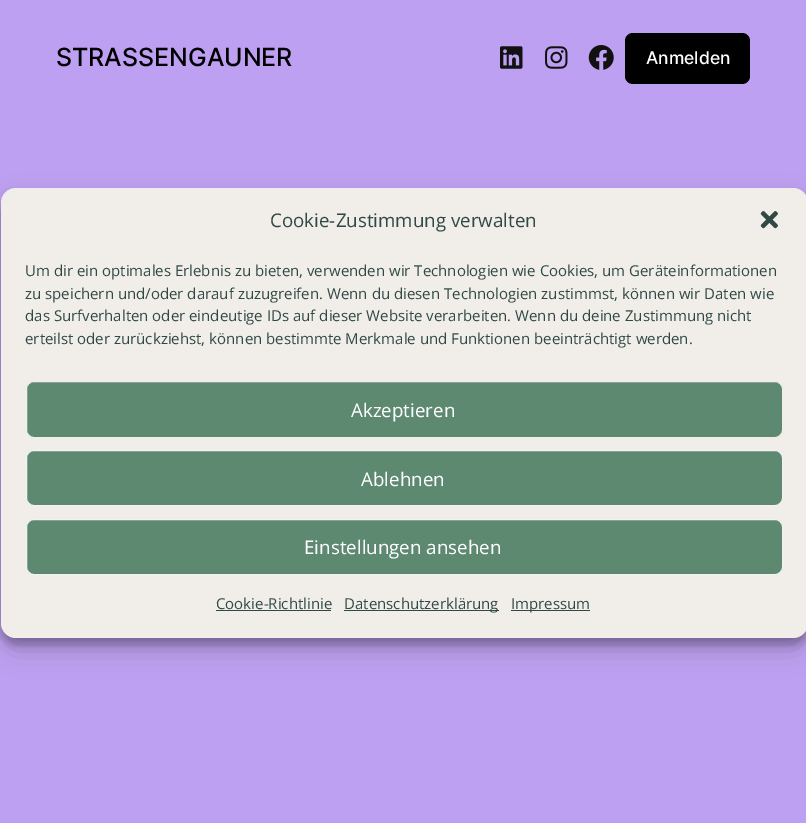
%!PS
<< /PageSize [806 823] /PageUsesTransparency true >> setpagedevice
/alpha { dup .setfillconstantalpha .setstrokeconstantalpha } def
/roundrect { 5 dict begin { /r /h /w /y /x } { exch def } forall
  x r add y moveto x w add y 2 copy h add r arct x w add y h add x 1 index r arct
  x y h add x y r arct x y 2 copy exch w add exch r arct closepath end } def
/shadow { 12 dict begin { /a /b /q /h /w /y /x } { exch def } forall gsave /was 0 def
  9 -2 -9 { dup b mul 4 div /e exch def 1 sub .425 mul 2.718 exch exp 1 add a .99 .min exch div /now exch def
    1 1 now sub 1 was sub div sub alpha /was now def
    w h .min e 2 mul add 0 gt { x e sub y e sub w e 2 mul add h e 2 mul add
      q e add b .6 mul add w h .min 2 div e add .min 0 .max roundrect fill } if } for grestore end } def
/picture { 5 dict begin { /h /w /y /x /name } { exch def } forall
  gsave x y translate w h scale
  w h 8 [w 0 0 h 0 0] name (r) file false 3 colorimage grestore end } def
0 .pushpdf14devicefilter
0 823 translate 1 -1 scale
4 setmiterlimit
0.745 0.627 0.949 setrgbcolor
0 0 806 823 rectfill
/Inter-Medium [25 0 0 -25 0 0] selectfont
0 setgray
56 66 moveto (STRASSENGAUNER) show
(img1.rgb) 500 46 23 23 picture
(img2.rgb) 545 46 23 23 picture
(img3.rgb) 588 45 26 25 picture
625 33 125 51 8 roundrect fill
/Inter-Medium [17.5 0 0 -17.5 0 0] selectfont
1 setgray
646 64 moveto (Anmelden) show
0 setgray
1 195 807 450 15 4 0.23 shadow
1 200 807 450 15 12.5 0.19 shadow
0.945 0.933 0.918 setrgbcolor
1 188 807 450 15 roundrect fill
/OpenSans-Regular [18.75 0 0 -18.75 0 0] selectfont
0.188 0.286 0.271 setrgbcolor
270 227 moveto (Cookie-Zustimmung verwalten) show
(img4.rgb) 760 211 18 18 picture
/OpenSans-Regular [15 0 0 -15 0 0] selectfont
25 276 moveto (Um dir ein optimales Erlebnis zu bieten, verwenden wir Technologien wie Cookies, um Geräteinformationen) show
25 299 moveto (zu speichern und/oder darauf zuzugreifen. Wenn du diesen Technologien zustimmst, können wir Daten wie) show
25 321 moveto (das Surfverhalten oder eindeutige IDs auf dieser Website verarbeiten. Wenn du deine Zustimmung nicht) show
25 344 moveto (erteilst oder zurückziehst, können bestimmte Merkmale und Funktionen beeinträchtigt werden.) show
0.369 0.537 0.443 setrgbcolor
26.5 381.5 756 56 7.5 roundrect gsave fill grestore
0.945 0.933 0.918 setrgbcolor
stroke
/OpenSans-Regular [18.75 0 0 -18.75 0 0] selectfont
1 setgray
351 417 moveto (Akzeptieren) show
0.369 0.537 0.443 setrgbcolor
26.5 450.5 756 55 7.5 roundrect gsave fill grestore
0.949 setgray
stroke
1 setgray
361 486 moveto (Ablehnen) show
0.369 0.537 0.443 setrgbcolor
26.5 519.5 756 55 7.5 roundrect gsave fill grestore
0.949 setgray
stroke
1 setgray
304 554 moveto (Einstellungen ansehen) show
/OpenSans-Regular [15 0 0 -15 0 0] selectfont
0.188 0.286 0.271 setrgbcolor
216 609 moveto (Cookie-Richtlinie) show
216 610 115 1 rectfill
344 610 155 1 rectfill
344 609 moveto (Datenschutzerklärung) show
511 610 79 1 rectfill
511 609 moveto (Impressum) show
.poppdf14devicefilter showpage
